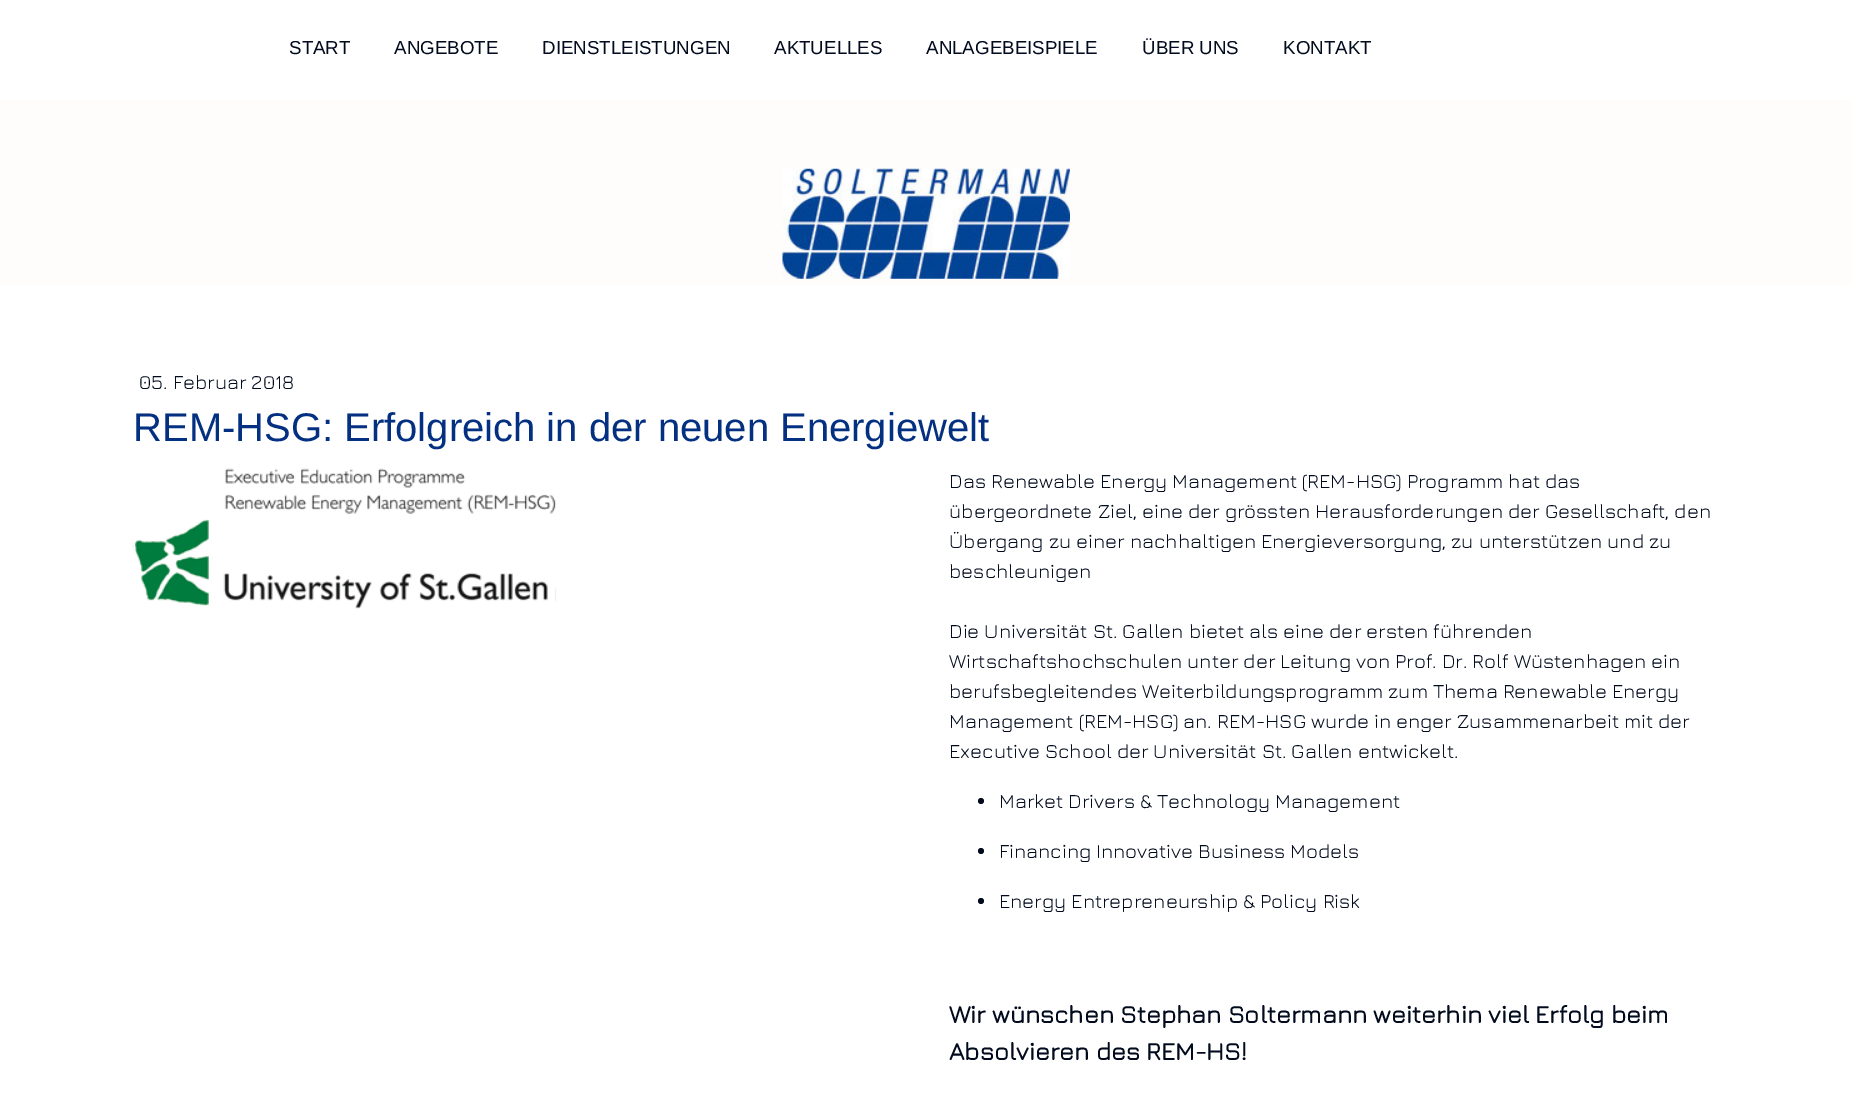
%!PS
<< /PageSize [1852 1100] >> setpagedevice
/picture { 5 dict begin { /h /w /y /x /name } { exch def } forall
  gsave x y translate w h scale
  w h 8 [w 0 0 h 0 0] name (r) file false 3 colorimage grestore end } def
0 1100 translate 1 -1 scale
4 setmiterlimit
1 setgray
0 0 1852 1100 rectfill
/LiberationSans-Regular [18.75 0 0 -18.75 0 0] selectfont
0.004 0.043 0.114 setrgbcolor
289 54 moveto (START) show
394 54 moveto (ANGEBOTE) show
542 54 moveto (DIENSTLEISTUNGEN) show
774 54 moveto (AKTUELLES) show
926 54 moveto (ANLAGEBEISPIELE) show
1142 54 moveto (ÜBER UNS) show
1283 54 moveto (KONTAKT) show
1 0.988 0.988 setrgbcolor
0 100 1852 185 rectfill
(img1.rgb) 782 168 288 111 picture
/Jura-Light [20 0 0 -20 0 0] selectfont
0.004 0.043 0.114 setrgbcolor
139 389 moveto (05. Februar 2018) show
/LiberationSans-Regular [40 0 0 -40 0 0] selectfont
0.012 0.188 0.506 setrgbcolor
133 441 moveto (REM-HSG: Erfolgreich in der neuen Energiewelt) show
(img2.rgb) 132 468 425 141 picture
/Jura-Light [20 0 0 -20 0 0] selectfont
0.004 0.043 0.114 setrgbcolor
949 488 moveto (Das Renewable Energy Management \(REM-HSG\) Programm hat das) show
949 518 moveto (übergeordnete Ziel, eine der grössten Herausforderungen der Gesellschaft, den) show
949 548 moveto (Übergang zu einer nachhaltigen Energieversorgung, zu unterstützen und zu) show
949 578 moveto (beschleunigen) show
949 638 moveto (Die Universität St. Gallen bietet als eine der ersten führenden) show
949 668 moveto (Wirtschaftshochschulen unter der Leitung von Prof. Dr. Rolf Wüstenhagen ein) show
949 698 moveto (berufsbegleitendes Weiterbildungsprogramm zum Thema Renewable Energy) show
949 728 moveto (Management \(REM-HSG\) an. REM-HSG wurde in enger Zusammenarbeit mit der) show
949 758 moveto (Executive School der Universität St. Gallen entwickelt.) show
newpath 981 801 3 0 360 arc closepath fill
999 808 moveto (Market Drivers & Technology Management) show
newpath 981 851 3 0 360 arc closepath fill
999 858 moveto (Financing Innovative Business Models) show
newpath 981 901 3 0 360 arc closepath fill
999 908 moveto (Energy Entrepreneurship & Policy Risk) show
/Jura-Bold [25 0 0 -25 0 0] selectfont
949 1023 moveto (Wir wünschen Stephan Soltermann weiterhin viel Erfolg beim) show
949 1060 moveto (Absolvieren des REM-HS!) show
showpage
